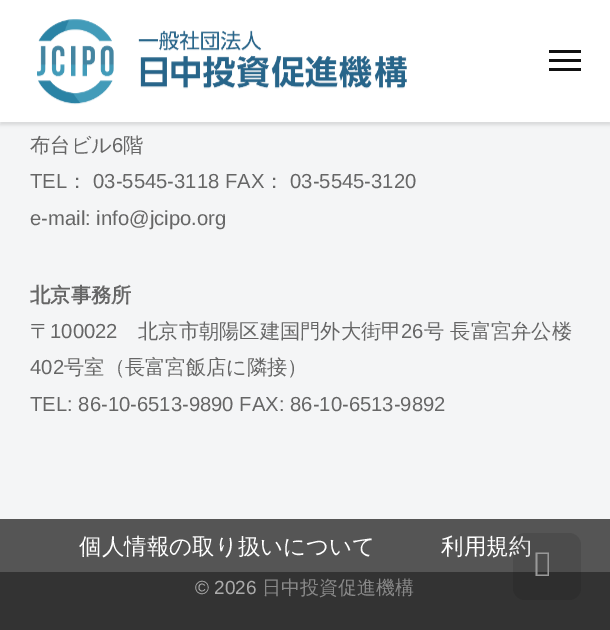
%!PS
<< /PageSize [610 630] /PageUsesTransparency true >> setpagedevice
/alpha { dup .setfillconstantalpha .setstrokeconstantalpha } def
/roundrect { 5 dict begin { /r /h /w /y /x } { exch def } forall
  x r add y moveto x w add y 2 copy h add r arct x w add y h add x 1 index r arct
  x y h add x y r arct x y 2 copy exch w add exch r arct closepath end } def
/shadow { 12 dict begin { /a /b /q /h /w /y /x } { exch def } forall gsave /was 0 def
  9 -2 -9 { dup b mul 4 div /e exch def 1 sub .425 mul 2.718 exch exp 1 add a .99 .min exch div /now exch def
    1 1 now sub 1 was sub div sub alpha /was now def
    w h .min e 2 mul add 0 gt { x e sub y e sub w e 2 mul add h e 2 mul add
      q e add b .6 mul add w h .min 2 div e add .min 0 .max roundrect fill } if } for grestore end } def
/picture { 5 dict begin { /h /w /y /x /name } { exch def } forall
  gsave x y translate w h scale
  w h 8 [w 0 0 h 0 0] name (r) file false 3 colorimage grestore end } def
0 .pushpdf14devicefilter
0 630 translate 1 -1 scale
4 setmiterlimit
0.957 0.961 0.965 setrgbcolor
0 0 610 630 rectfill
0 setgray
0 3 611 122 0 1.5 0.1 shadow
1 setgray
0 0 610 122 rectfill
(img1.rgb) 37 19 370 86 picture
0.067 setgray
549 59 32 3 rectfill
549 50 32 3 rectfill
549 68 32 3 rectfill
/WenQuanYiZenHei-Medium [20.25 0 0 -20.25 0 0] selectfont
0.4 setgray
30 152 moveto (布台ビル) show
/LiberationSans-Regular [20.25 0 0 -20.25 0 0] selectfont
112 152 moveto (6) show
/WenQuanYiZenHei-Medium [20.25 0 0 -20.25 0 0] selectfont
123 152 moveto (階) show
/LiberationSans-Regular [20.25 0 0 -20.25 0 0] selectfont
30 188 moveto (TEL) show
/WenQuanYiZenHei-Medium [20.25 0 0 -20.25 0 0] selectfont
67 188 moveto (：) show
/LiberationSans-Regular [20.25 0 0 -20.25 0 0] selectfont
93 188 moveto (03-5545-3118 FAX) show
/WenQuanYiZenHei-Medium [20.25 0 0 -20.25 0 0] selectfont
264 188 moveto (：) show
/LiberationSans-Regular [20.25 0 0 -20.25 0 0] selectfont
290 188 moveto (03-5545-3120) show
30 225 moveto (e-mail: info@jcipo.org) show
/WenQuanYiZenHei-Bold [20.25 0 0 -20.25 0 0] selectfont
30 302 moveto (北京事務所) show
/WenQuanYiZenHei-Medium [20.25 0 0 -20.25 0 0] selectfont
30 338 moveto (〒) show
/LiberationSans-Regular [20.25 0 0 -20.25 0 0] selectfont
50 338 moveto (100022) show
/WenQuanYiZenHei-Medium [20.25 0 0 -20.25 0 0] selectfont
138 338 moveto (北京市朝陽区建国門外大街甲) show
/LiberationSans-Regular [20.25 0 0 -20.25 0 0] selectfont
401 338 moveto (26) show
/WenQuanYiZenHei-Medium [20.25 0 0 -20.25 0 0] selectfont
424 338 moveto (号 長富宮弁公楼) show
/LiberationSans-Regular [20.25 0 0 -20.25 0 0] selectfont
30 374 moveto (402) show
/WenQuanYiZenHei-Medium [20.25 0 0 -20.25 0 0] selectfont
64 374 moveto (号室（長富宮飯店に隣接）) show
/LiberationSans-Regular [20.25 0 0 -20.25 0 0] selectfont
30 411 moveto (TEL: 86-10-6513-9890 FAX: 86-10-6513-9892) show
0.2 setgray
0 572 610 58 rectfill
0.333 setgray
0 519 610 53 rectfill
/WenQuanYiZenHei-Medium [22.5 0 0 -22.5 0 0] selectfont
1 setgray
79 554 moveto (個人情報の取り扱いについて) show
441 554 moveto (利用規約) show
/LiberationSans-Regular [19 0 0 -19 0 0] selectfont
0.667 setgray
195 594 moveto (© 2026) show
/WenQuanYiZenHei-Medium [19 0 0 -19 0 0] selectfont
0.533 setgray
262 594 moveto (日中投資促進機構) show
0.1 alpha
0 setgray
513 533 68 67 12 roundrect fill
1 alpha
0.6 setgray
newpath 535.5 576 moveto 535.5 552.5 lineto 549 552.5 lineto 549 576 lineto closepath 537.5 574.5 moveto 547.5 574.5 lineto 547.5 554 lineto 537.5 554 lineto closepath fill
.poppdf14devicefilter showpage
